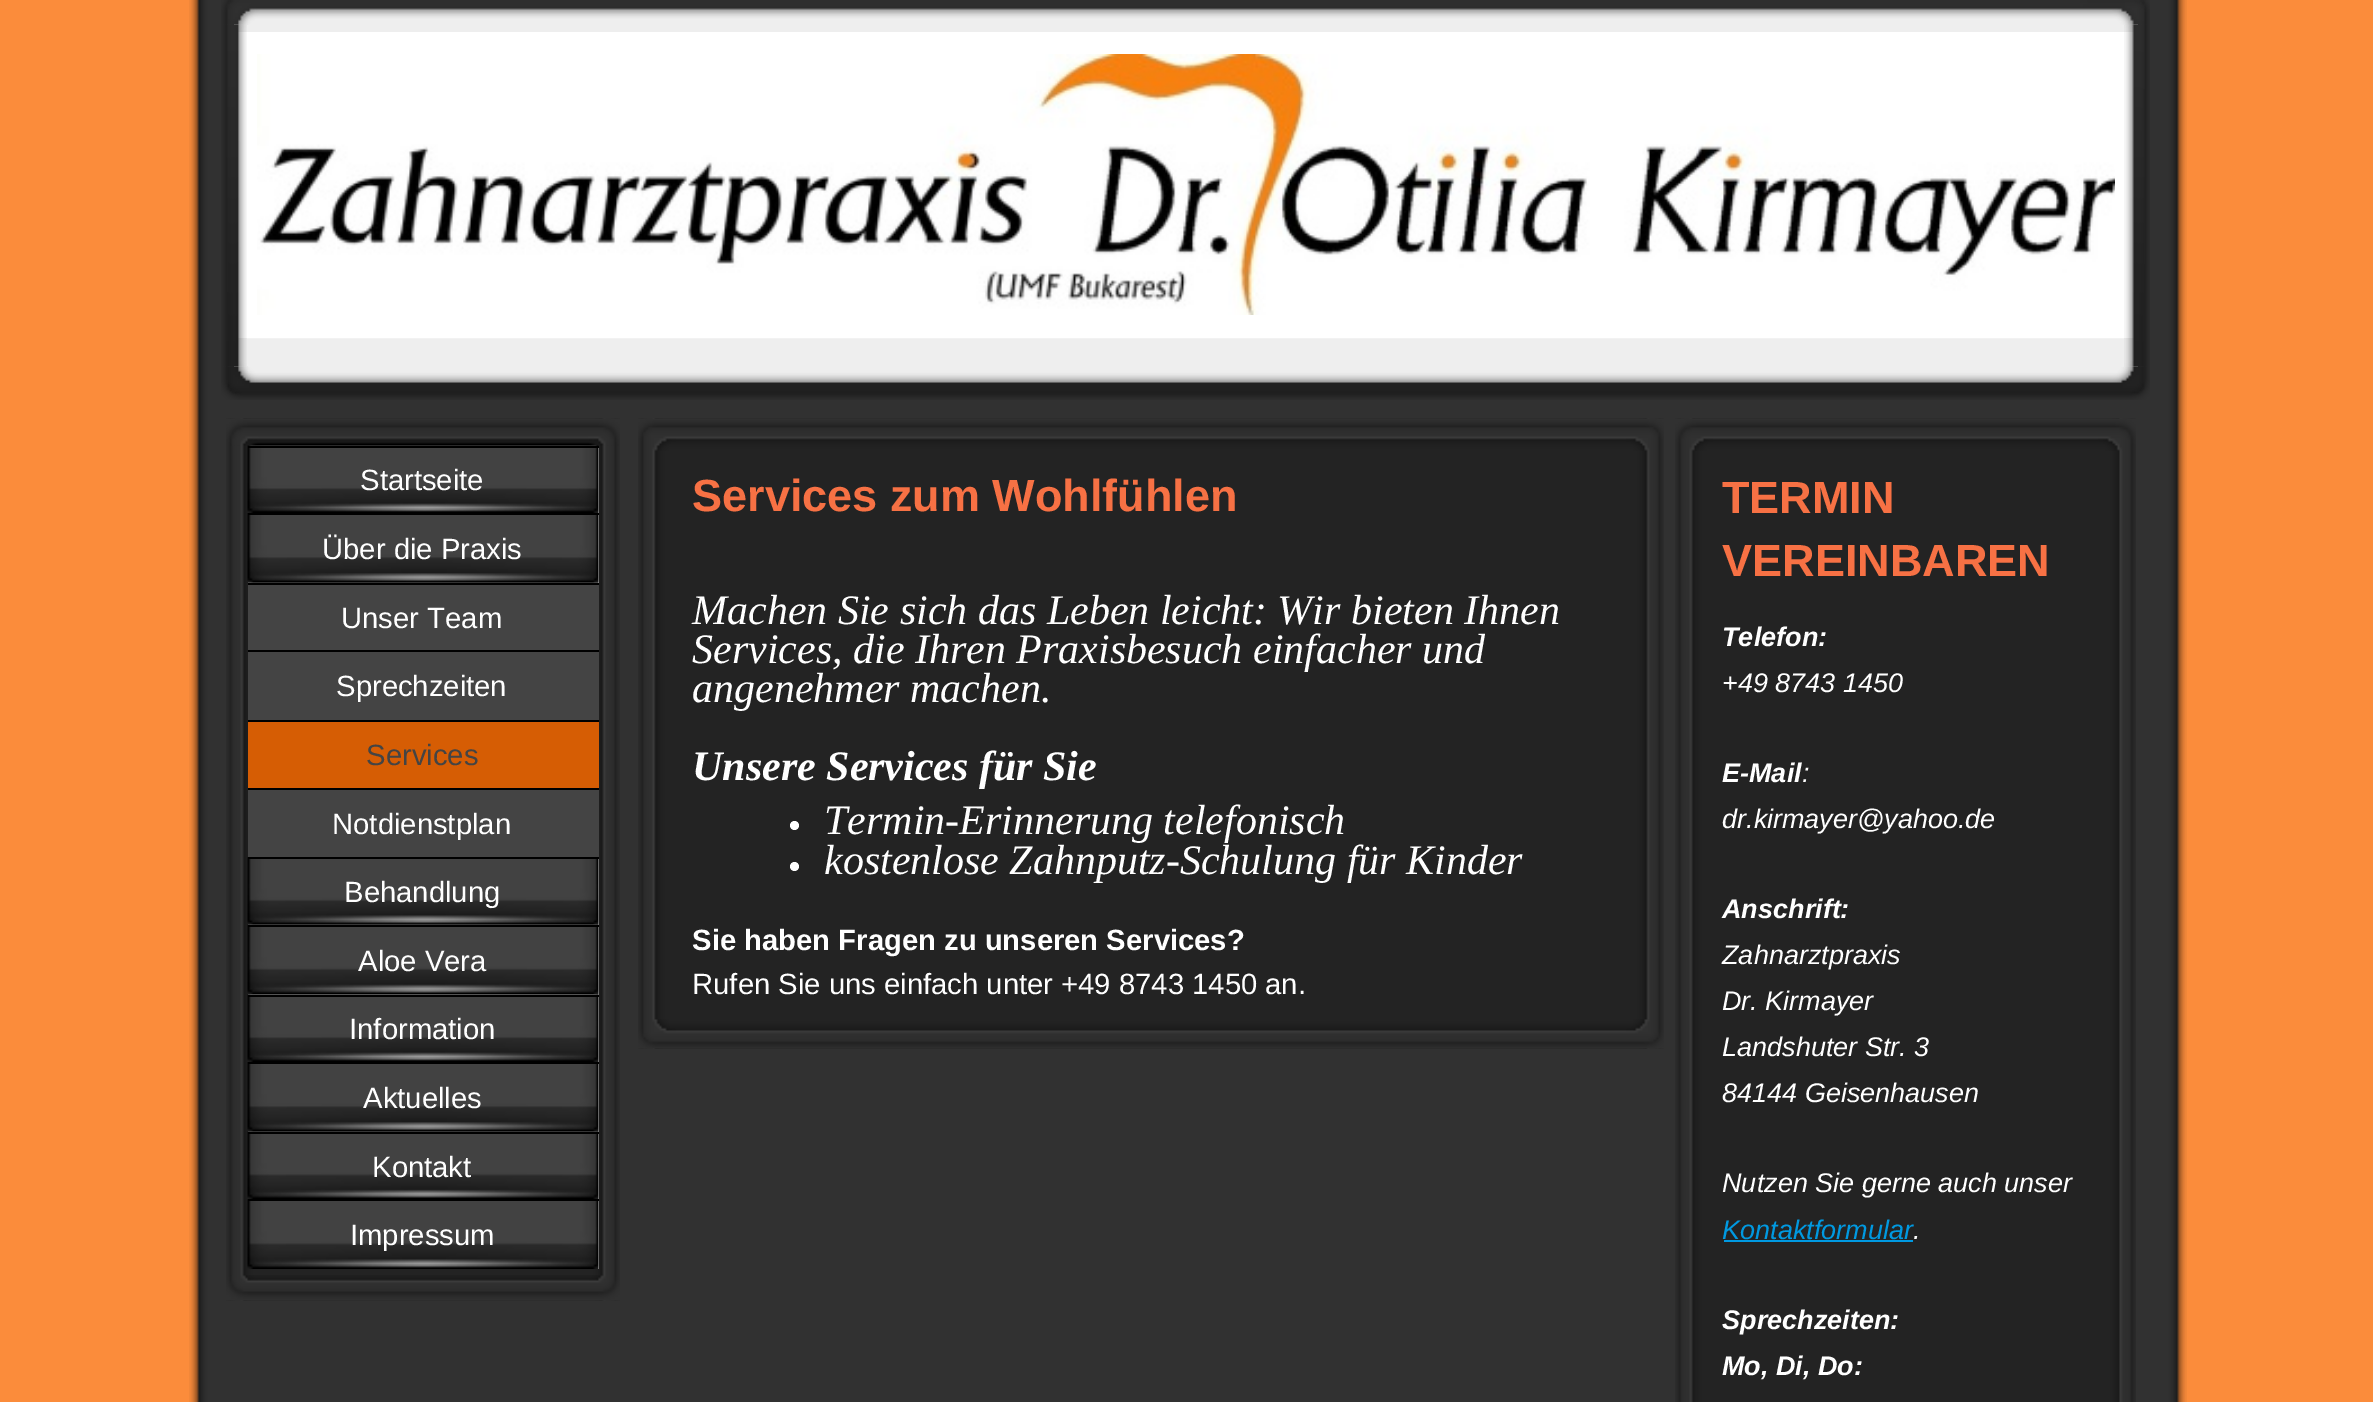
%!PS
<< /PageSize [2373 1402] >> setpagedevice
/picture { 5 dict begin { /h /w /y /x /name } { exch def } forall
  gsave x y translate w h scale
  w h 8 [w 0 0 h 0 0] name (r) file false 3 colorimage grestore end } def
0 1402 translate 1 -1 scale
4 setmiterlimit
0.984 0.549 0.231 setrgbcolor
0 0 2373 1402 rectfill
(img1.rgb) 189 0 1998 1402 picture
0.933 setgray
234 8 1904 375 rectfill
1 setgray
23 setlinewidth
245.5 43.5 1881 283 rectstroke
(img4.rgb) 221 24 26 343 picture
(img6.rgb) 221 366 1929 34 picture
(img5.rgb) 2124 24 26 343 picture
(img2.rgb) 221 0 1929 25 picture
(img3.rgb) 257 54 1858 261 picture
(img7.rgb) 226 418 394 883 picture
(img8.rgb) 226 418 394 28 picture
0.8 setgray
598 448 1 65 rectfill
(img9.rgb) 247 445 352 68 picture
0 setgray
248 446 351 2 rectfill
/LiberationSans-Regular [29.25 0 0 -29.25 0 0] selectfont
1 setgray
360 490 moveto (Startseite) show
0.8 setgray
248 515 351 68 rectfill
(img10.rgb) 247 513 352 70 picture
0 setgray
248 513 351 2 rectfill
1 setgray
322 559 moveto (Über die Praxis) show
0.267 setgray
248 585 351 65 rectfill
0 setgray
248 583 351 2 rectfill
1 setgray
341 628 moveto (Unser Team) show
0.267 setgray
248 652 351 68 rectfill
0 setgray
248 650 351 2 rectfill
1 setgray
336 696 moveto (Sprechzeiten) show
0.839 0.365 0.016 setrgbcolor
248 722 351 66 rectfill
0 setgray
248 720 351 2 rectfill
0.267 setgray
366 765 moveto (Services) show
248 790 351 67 rectfill
0 setgray
248 788 351 2 rectfill
1 setgray
332 834 moveto (Notdienstplan) show
0.8 setgray
248 859 351 66 rectfill
(img11.rgb) 247 857 352 68 picture
0 setgray
248 857 351 2 rectfill
1 setgray
344 902 moveto (Behandlung) show
0.8 setgray
248 927 351 68 rectfill
(img12.rgb) 247 924 352 71 picture
0 setgray
248 925 351 2 rectfill
1 setgray
358 971 moveto (Aloe Vera) show
0.8 setgray
598 997 1 65 rectfill
(img13.rgb) 247 994 352 68 picture
0 setgray
248 995 351 2 rectfill
1 setgray
349 1039 moveto (Information) show
0.8 setgray
248 1064 351 68 rectfill
(img10.rgb) 247 1062 352 70 picture
0 setgray
248 1062 351 2 rectfill
1 setgray
363 1108 moveto (Aktuelles) show
0.8 setgray
598 1134 1 65 rectfill
(img14.rgb) 247 1131 352 69 picture
0 setgray
248 1132 351 2 rectfill
1 setgray
372 1177 moveto (Kontakt) show
0.8 setgray
598 1201 1 68 rectfill
(img15.rgb) 247 1199 352 70 picture
0 setgray
248 1199 351 2 rectfill
1 setgray
350 1245 moveto (Impressum) show
(img16.rgb) 226 1275 394 26 picture
(img17.rgb) 638 418 1026 631 picture
(img18.rgb) 638 418 1026 33 picture
/LiberationSans-Bold [45 0 0 -45 0 0] selectfont
0.969 0.443 0.267 setrgbcolor
692 511 moveto (Services zum Wohlfühlen) show
/LiberationSerif-Italic [42 0 0 -42 0 0] selectfont
1 setgray
692 624 moveto (Machen Sie sich das Leben leicht: Wir bieten Ihnen) show
692 663 moveto (Services, die Ihren Praxisbesuch einfacher und) show
692 702 moveto (angenehmer machen.) show
/LiberationSerif-BoldItalic [42 0 0 -42 0 0] selectfont
692 780 moveto (Unsere Services für Sie) show
newpath 794.5 825.5 4.5 0 360 arc closepath fill
/LiberationSerif-Italic [42 0 0 -42 0 0] selectfont
824 834 moveto (Termin-Erinnerung telefonisch) show
newpath 794.5 866.5 4.5 0 360 arc closepath fill
824 874 moveto (kostenlose Zahnputz-Schulung für Kinder) show
/LiberationSans-Bold [29.25 0 0 -29.25 0 0] selectfont
692 950 moveto (Sie haben Fragen zu unseren Services?) show
/LiberationSans-Regular [29.25 0 0 -29.25 0 0] selectfont
692 994 moveto (Rufen Sie uns einfach unter +49 8743 1450 an.) show
(img19.rgb) 638 1019 1026 30 picture
(img20.rgb) 1675 418 461 984 picture
(img21.rgb) 1675 418 461 33 picture
/LiberationSans-Bold [45 0 0 -45 0 0] selectfont
0.969 0.443 0.267 setrgbcolor
1722 513 moveto (TERMIN) show
1722 576 moveto (VEREINBAREN) show
/LiberationSans-BoldItalic [27 0 0 -27 0 0] selectfont
1 setgray
1722 646 moveto (Telefon:) show
/LiberationSans-Italic [27 0 0 -27 0 0] selectfont
1722 692 moveto (+49 8743 1450) show
/LiberationSans-BoldItalic [27 0 0 -27 0 0] selectfont
1722 782 moveto (E-Mail) show
/LiberationSans-Italic [27 0 0 -27 0 0] selectfont
1802 782 moveto (:) show
1722 828 moveto (dr.kirmayer@yahoo.de) show
/LiberationSans-BoldItalic [27 0 0 -27 0 0] selectfont
1722 918 moveto (Anschrift:) show
/LiberationSans-Italic [27 0 0 -27 0 0] selectfont
1722 964 moveto (Zahnarztpraxis) show
1722 1010 moveto (Dr. Kirmayer) show
1722 1056 moveto (Landshuter Str. 3) show
1722 1102 moveto (84144 Geisenhausen) show
1722 1192 moveto (Nutzen Sie gerne auch unser) show
0 0.6 0.882 setrgbcolor
1722 1239 moveto (Kontaktformular) show
1 setgray
1913 1239 moveto (.) show
0 0.6 0.882 setrgbcolor
1724 1240 189 2 rectfill
/LiberationSans-BoldItalic [27 0 0 -27 0 0] selectfont
1 setgray
1722 1329 moveto (Sprechzeiten:) show
1722 1375 moveto (Mo, Di, Do:) show
showpage
